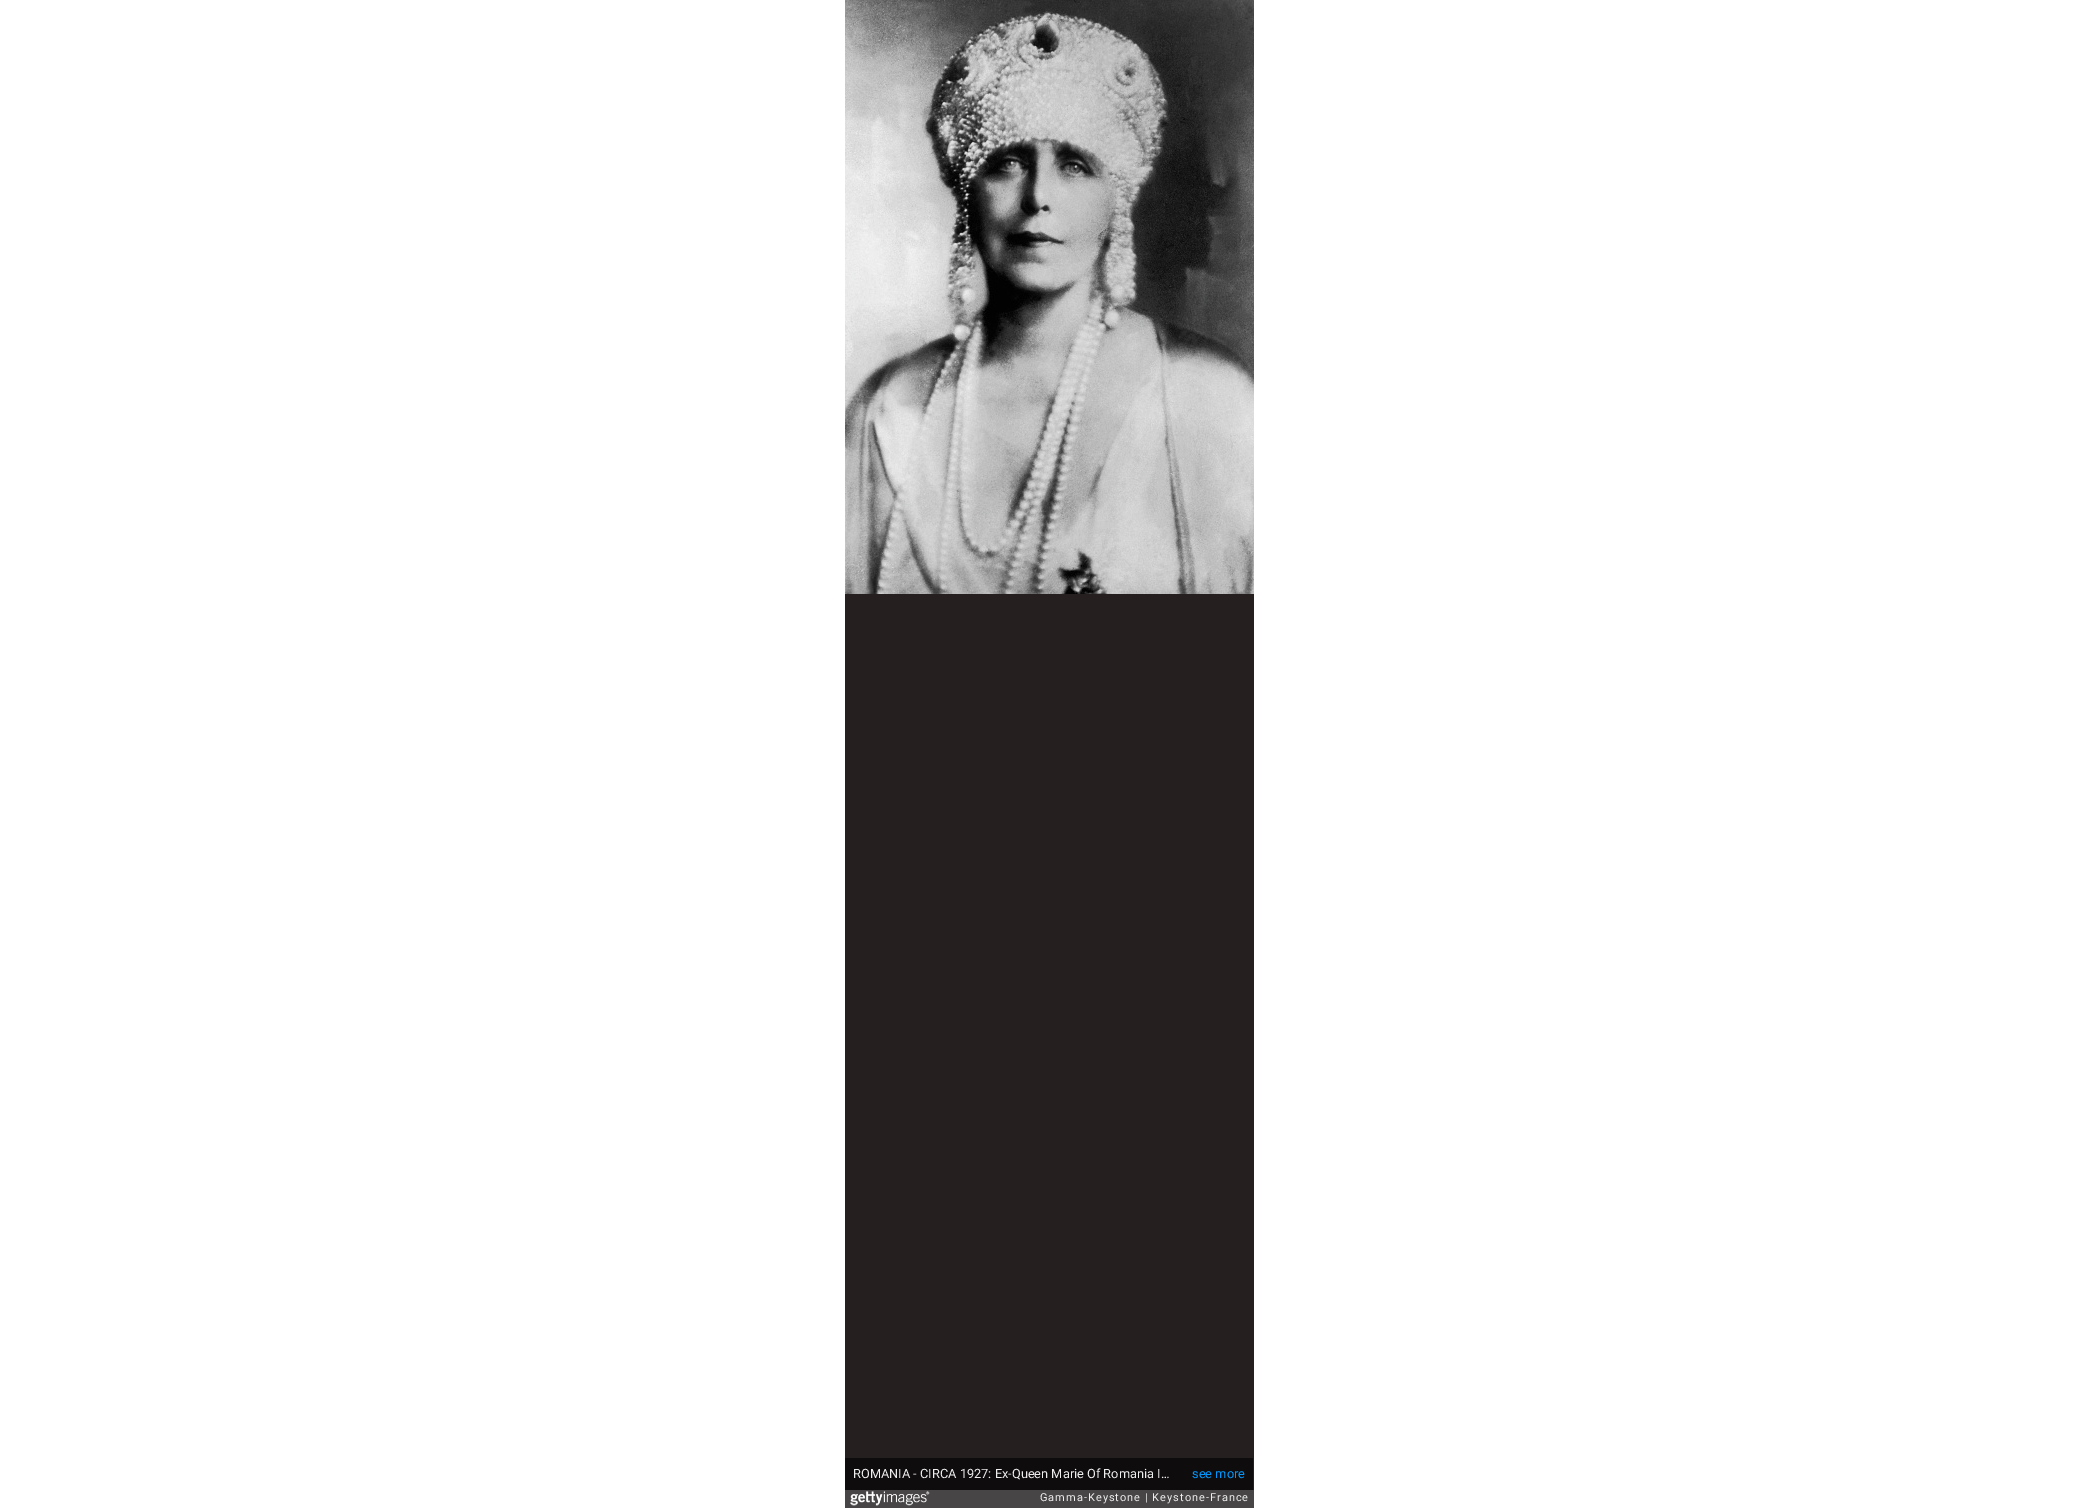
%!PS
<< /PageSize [2098 1508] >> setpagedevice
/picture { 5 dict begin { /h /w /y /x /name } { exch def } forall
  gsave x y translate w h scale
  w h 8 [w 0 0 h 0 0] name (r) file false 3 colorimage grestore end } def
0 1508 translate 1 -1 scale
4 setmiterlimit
1 setgray
0 0 2098 1508 rectfill
0.145 0.122 0.125 setrgbcolor
845 594 409 896 rectfill
(img1.rgb) 845 0 409 594 picture
0.059 0.047 0.051 setrgbcolor
845 1458 408 32 rectfill
/Roboto-Regular [12.8 0 0 -12.8 0 0] selectfont
0.933 setgray
853 1478 moveto (ROMANIA - CIRCA 1927: Ex-Queen Marie Of Romania I…) show
0 0.6 1 setrgbcolor
1192 1478 moveto (see more) show
0.278 0.271 0.271 setrgbcolor
845 1490 409 18 rectfill
(img2.rgb) 850 1491 80 15 picture
/Roboto-Regular [11 0 0 -11 0 0] selectfont
0.933 setgray
1040 1501 moveto 1 0 (Gamma-Keystone | Keystone-France) ashow
showpage
